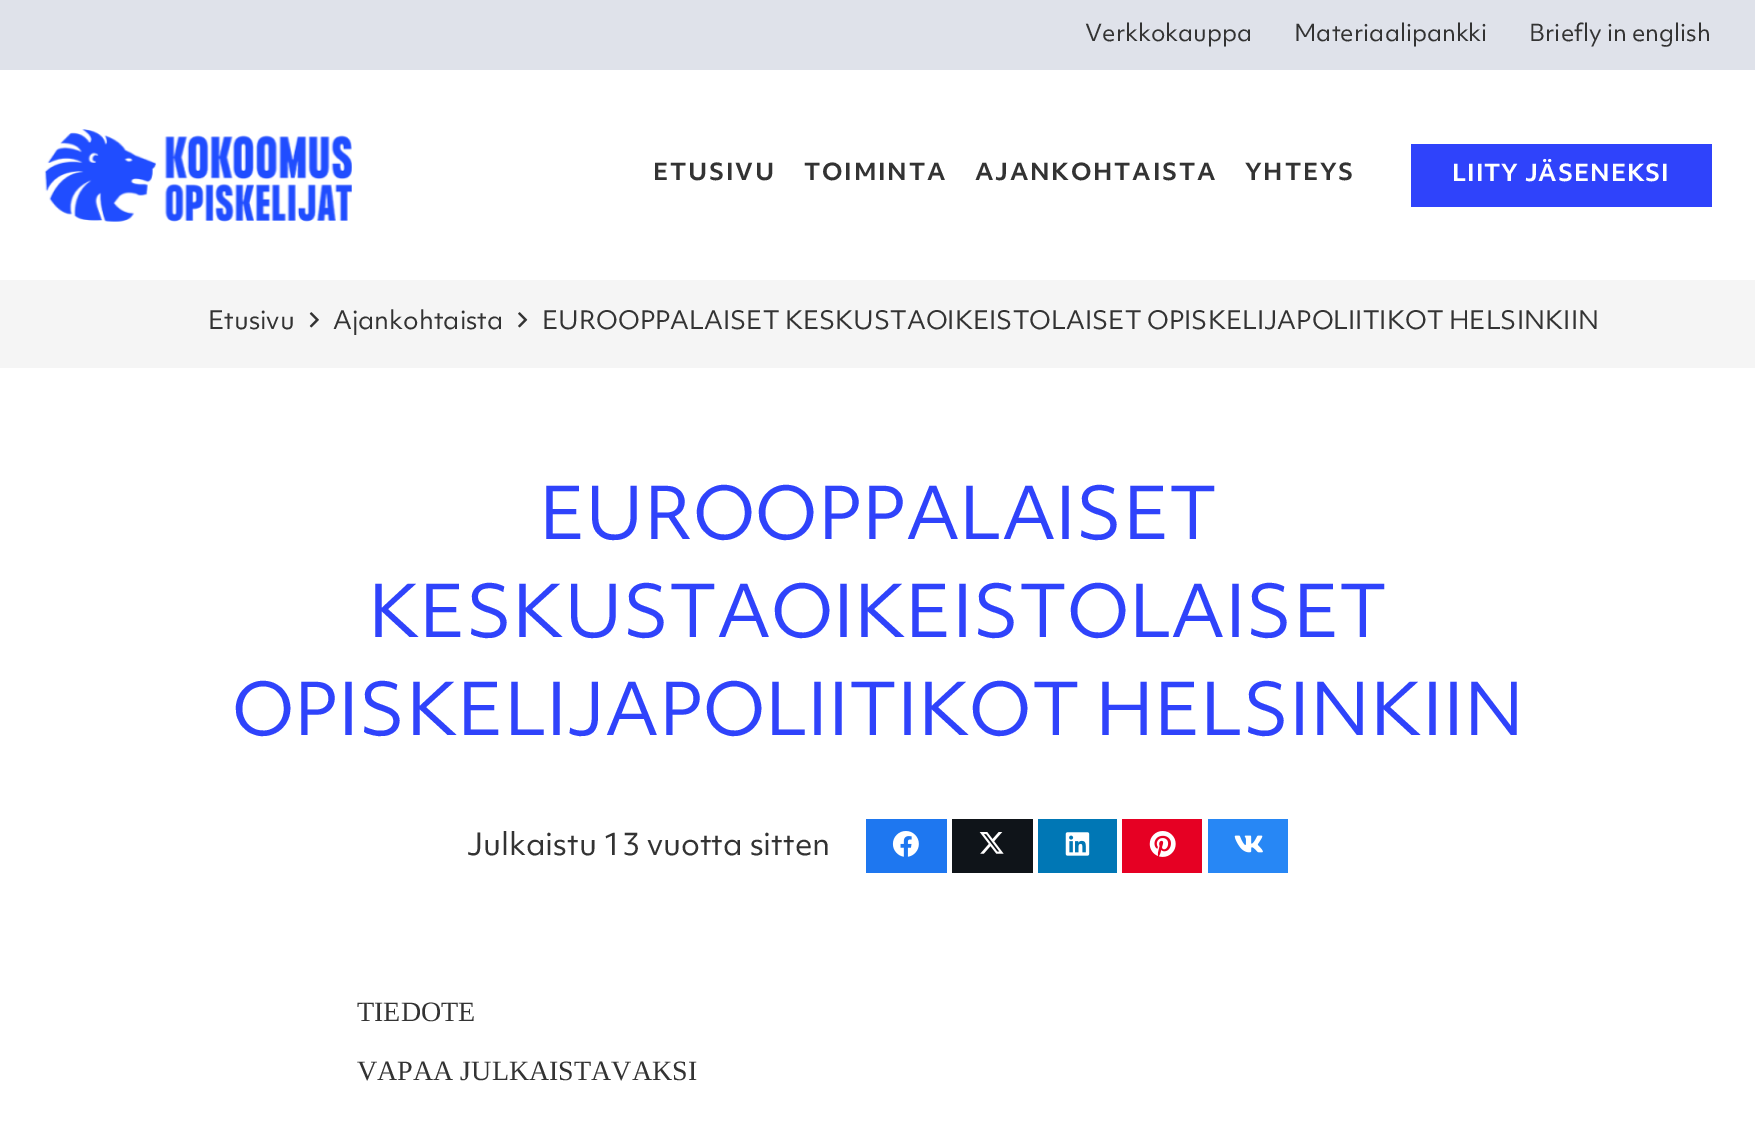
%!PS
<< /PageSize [1755 1124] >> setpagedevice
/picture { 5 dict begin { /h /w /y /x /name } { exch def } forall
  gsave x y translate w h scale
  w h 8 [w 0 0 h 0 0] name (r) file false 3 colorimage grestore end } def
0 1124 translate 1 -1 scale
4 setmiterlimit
1 setgray
0 0 1755 1124 rectfill
0.875 0.886 0.918 setrgbcolor
0 0 1755 70 rectfill
/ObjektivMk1-Regular [22.75 0 0 -22.75 0 0] selectfont
0.2 setgray
1085 41 moveto (Verkkokauppa) show
1294 41 moveto (Materiaalipankki) show
1529 41 moveto (Briefly in english) show
(img1.rgb) 44 129 308 93 picture
/ObjektivMk1-Bold [22.75 0 0 -22.75 0 0] selectfont
653 180 moveto 1.75 0 (ETUSIVU) ashow
804 180 moveto 1.75 0 (TOIMINTA) ashow
975 180 moveto 1.75 0 (AJANKOHTAISTA) ashow
1245 180 moveto 1.75 0 (YHTEYS) ashow
0.184 0.263 0.984 setrgbcolor
1411 144 301 63 rectfill
1 setgray
1452 181 moveto 0.9 0 (LIITY JÄSENEKSI) ashow
0.961 setgray
0 280 1755 88 rectfill
/ObjektivMk1-Regular [24.5 0 0 -24.5 0 0] selectfont
0.2 setgray
208 329 moveto (Etusivu) show
(img2.rgb) 309 312 10 16 picture
333 329 moveto (Ajankohtaista) show
(img3.rgb) 518 312 10 16 picture
542 329 moveto (EUROOPPALAISET KESKUSTAOIKEISTOLAISET OPISKELIJAPOLIITIKOT HELSINKIIN) show
/ObjektivMk1-Regular [70 0 0 -70 0 0] selectfont
0.184 0.263 0.984 setrgbcolor
539 539 moveto (EUROOPPALAISET) show
368 637 moveto (KESKUSTAOIKEISTOLAISET) show
232 735 moveto (OPISKELIJAPOLIITIKOT HELSINKIIN) show
/ObjektivMk1-Regular [29.75 0 0 -29.75 0 0] selectfont
0.2 setgray
467 855 moveto (Julkaistu 13 vuotta sitten) show
0.118 0.467 0.941 setrgbcolor
866 819 81 54 rectfill
(img4.rgb) 892 831 27 26 picture
0.059 0.078 0.098 setrgbcolor
952 819 81 54 rectfill
(img5.rgb) 979 832 25 22 picture
0 0.467 0.71 setrgbcolor
1038 819 79 54 rectfill
(img6.rgb) 1065 832 25 24 picture
0.902 0 0.137 setrgbcolor
1122 819 80 54 rectfill
(img7.rgb) 1149 831 27 26 picture
0.153 0.529 0.961 setrgbcolor
1208 819 80 54 rectfill
(img8.rgb) 1234 835 29 18 picture
/LiberationSerif-Regular [28 0 0 -28 0 0] selectfont
0.2 setgray
357 1021 moveto (TIEDOTE) show
357 1080 moveto (VAPAA JULKAISTAVAKSI) show
showpage
